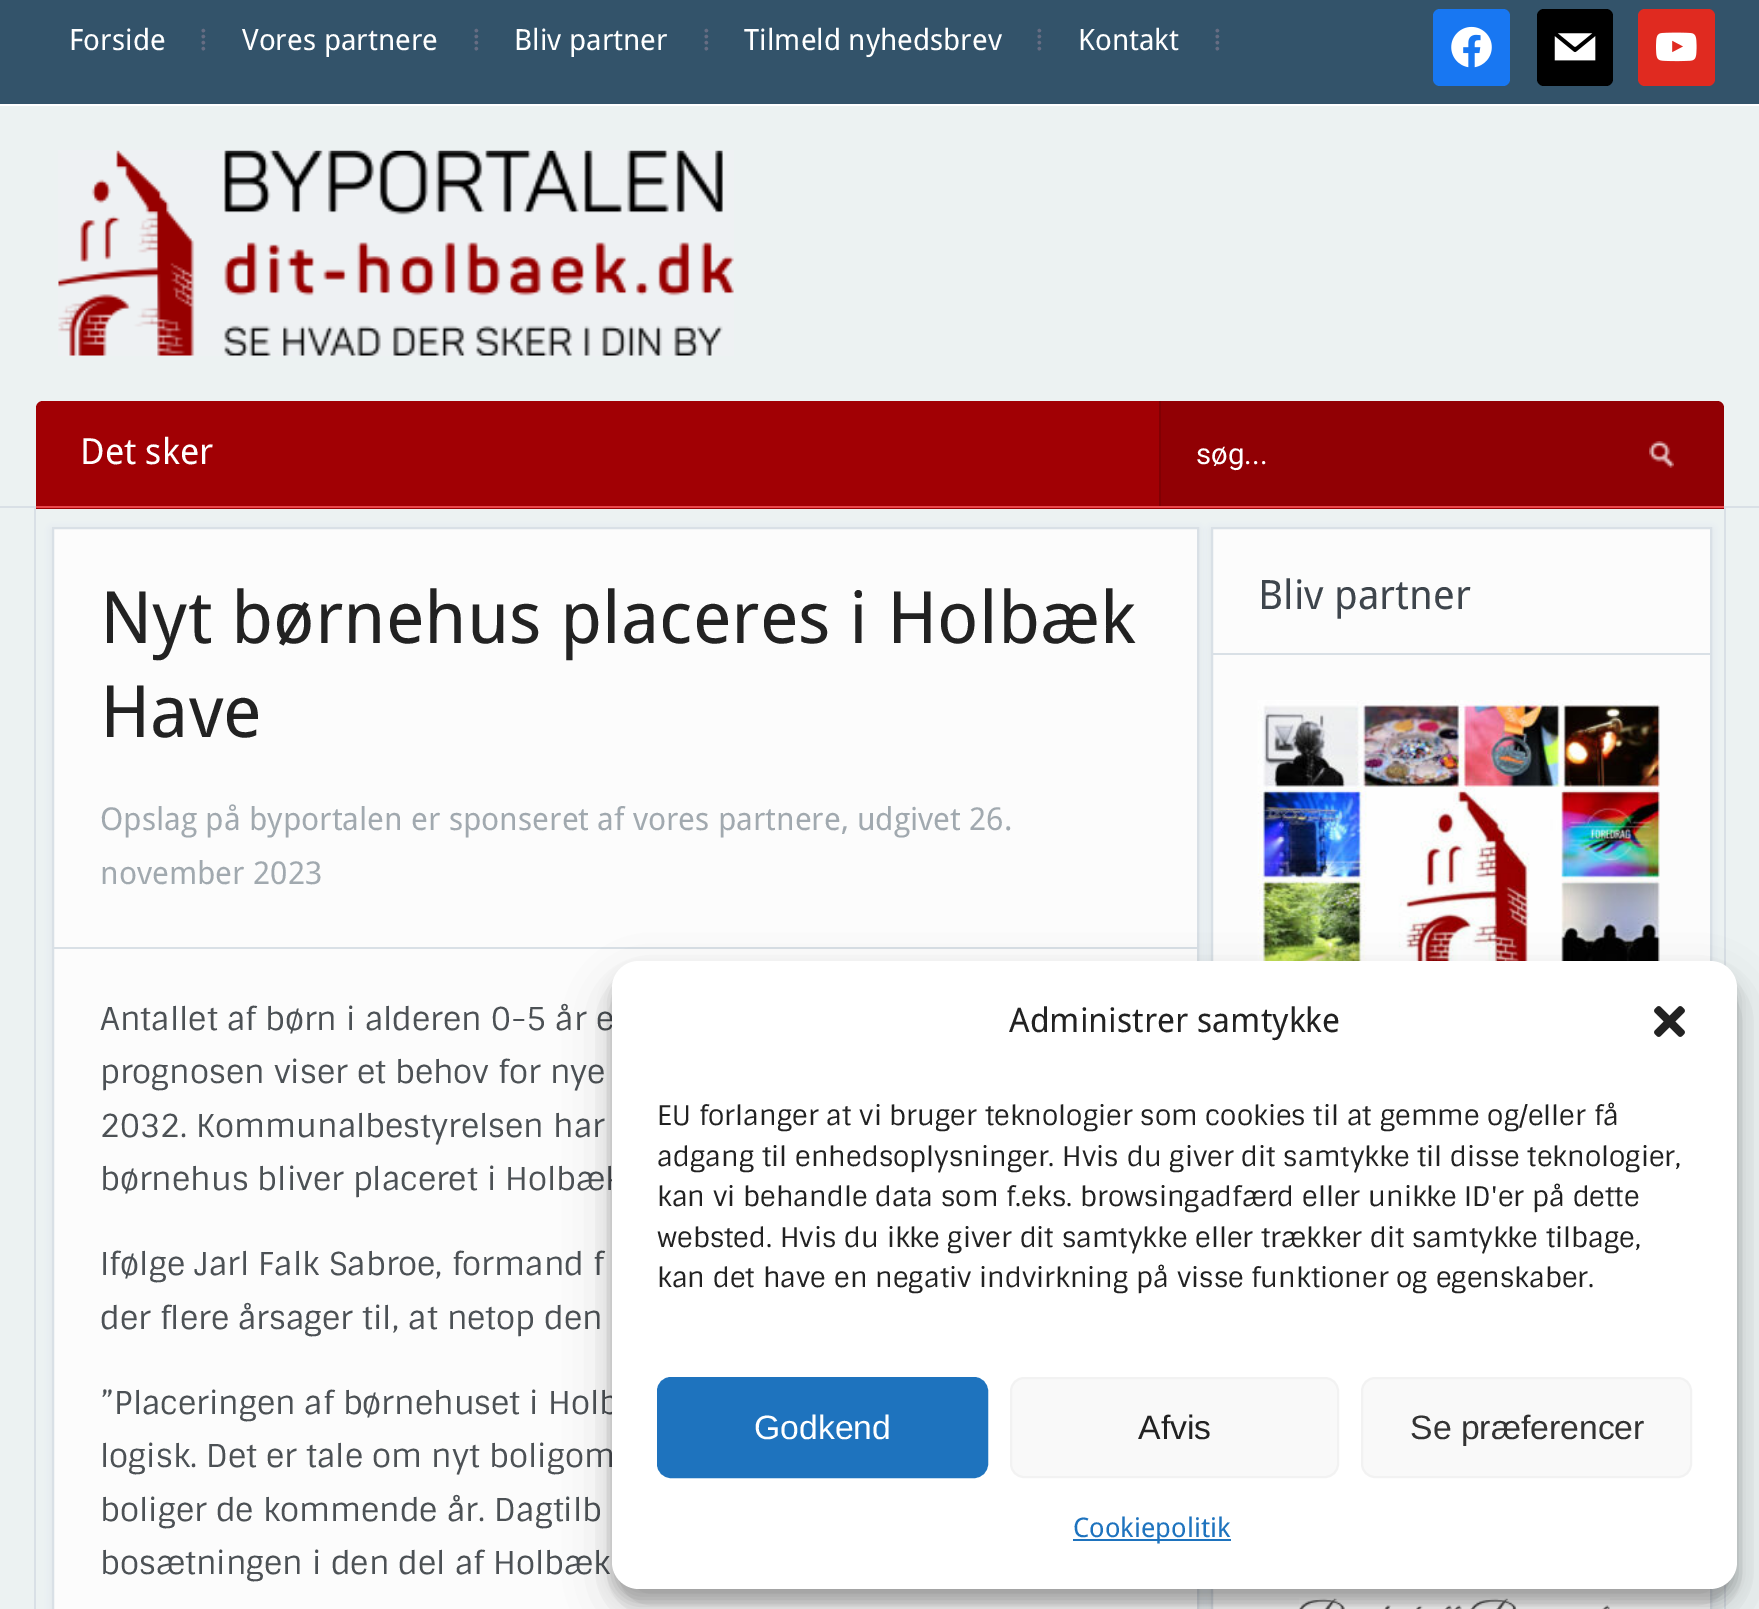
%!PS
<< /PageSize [1759 1609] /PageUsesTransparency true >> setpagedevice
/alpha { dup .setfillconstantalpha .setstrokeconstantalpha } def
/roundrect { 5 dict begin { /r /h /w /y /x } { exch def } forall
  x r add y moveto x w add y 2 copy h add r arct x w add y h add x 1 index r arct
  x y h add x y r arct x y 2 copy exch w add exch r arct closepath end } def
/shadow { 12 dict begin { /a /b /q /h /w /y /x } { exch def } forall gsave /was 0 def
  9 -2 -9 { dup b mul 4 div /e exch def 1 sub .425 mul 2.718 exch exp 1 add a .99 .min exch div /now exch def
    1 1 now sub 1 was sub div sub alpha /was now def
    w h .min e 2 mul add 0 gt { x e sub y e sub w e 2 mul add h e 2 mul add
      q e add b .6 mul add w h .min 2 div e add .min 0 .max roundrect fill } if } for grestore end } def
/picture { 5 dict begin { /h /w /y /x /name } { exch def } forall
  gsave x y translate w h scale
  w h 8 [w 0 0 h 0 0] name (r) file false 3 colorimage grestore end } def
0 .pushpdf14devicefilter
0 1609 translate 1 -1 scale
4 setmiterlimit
0.925 0.949 0.949 setrgbcolor
0 0 1759 1609 rectfill
0.851 0.878 0.902 setrgbcolor
0 506 1759 2 rectfill
0.2 0.325 0.416 setrgbcolor
0 0 1759 104 rectfill
1 setgray
0 104 1759 2 rectfill
/DroidSans-Regular [29.25 0 0 -29.25 0 0] selectfont
69 50 moveto (Forside) show
/LiberationSerif-Regular [31.5 0 0 -31.5 0 0] selectfont
0.4 0.427 0.514 setrgbcolor
199 50 moveto (⁞) show
/DroidSans-Regular [29.25 0 0 -29.25 0 0] selectfont
1 setgray
242 50 moveto (Vores partnere) show
/LiberationSerif-Regular [31.5 0 0 -31.5 0 0] selectfont
0.4 0.427 0.514 setrgbcolor
472 50 moveto (⁞) show
/DroidSans-Regular [29.25 0 0 -29.25 0 0] selectfont
1 setgray
514 50 moveto (Bliv partner) show
/LiberationSerif-Regular [31.5 0 0 -31.5 0 0] selectfont
0.4 0.427 0.514 setrgbcolor
702 50 moveto (⁞) show
/DroidSans-Regular [29.25 0 0 -29.25 0 0] selectfont
1 setgray
744 50 moveto (Tilmeld nyhedsbrev) show
/LiberationSerif-Regular [31.5 0 0 -31.5 0 0] selectfont
0.4 0.427 0.514 setrgbcolor
1035 50 moveto (⁞) show
/DroidSans-Regular [29.25 0 0 -29.25 0 0] selectfont
1 setgray
1078 50 moveto (Kontakt) show
/LiberationSerif-Regular [31.5 0 0 -31.5 0 0] selectfont
0.4 0.427 0.514 setrgbcolor
1213 50 moveto (⁞) show
0.094 0.467 0.949 setrgbcolor
1433 9 77 77 7 roundrect fill
(img1.rgb) 1451 26 41 42 picture
0 setgray
1537 9 76 77 7 roundrect fill
(img2.rgb) 1554 33 42 28 picture
0.878 0.165 0.125 setrgbcolor
1638 9 77 77 7 roundrect fill
(img3.rgb) 1656 32 41 30 picture
(img4.rgb) 58 150 676 206 picture
0.631 0 0.016 setrgbcolor
newpath 43 401 moveto 1717 401 lineto 1721 401 1724 404 1724 408 curveto 1724 509 lineto 36 509 lineto 36 408 lineto 36 404 39 401 43 401 curveto closepath fill
0.914 0.282 0.298 setrgbcolor
36 506 1688 2 rectfill
/DroidSans-Regular [36 0 0 -36 0 0] selectfont
1 setgray
80 464 moveto (Det sker) show
0.506 0 0.012 setrgbcolor
1159 401 2 105 rectfill
0.1 alpha
0 setgray
newpath 1161 401 moveto 1717 401 lineto 1721 401 1724 404 1724 408 curveto 1724 506 lineto 1161 506 lineto closepath fill
/Roboto-Regular [29.25 0 0 -29.25 0 0] selectfont
1 alpha
1 setgray
1196 464 moveto (søg...) show
(img5.rgb) 1649 441 25 27 picture
0.851 0.878 0.902 setrgbcolor
newpath 34 508 moveto 1726 508 lineto 1726 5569 lineto 1726 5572 1723 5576 1719 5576 curveto 40 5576 lineto 37 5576 34 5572 34 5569 curveto closepath 36 508 moveto 1724 508 lineto 1724 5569 lineto 1724 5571 1721 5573 1719 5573 curveto 40 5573 lineto 38 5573 36 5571 36 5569 curveto closepath eofill
0.29 0.373 0.455 setrgbcolor
52 529 1147 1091 0 3.5 0.08 shadow
0.988 setgray
newpath 53 528 moveto 1198 528 lineto 1198 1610 lineto 53 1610 lineto closepath gsave fill grestore
0.851 0.878 0.902 setrgbcolor
2 setlinewidth
stroke
54 947 1143 2 rectfill
/DroidSans-Regular [72 0 0 -72 0 0] selectfont
0.133 setgray
100 643 moveto (Nyt børnehus placeres i Holbæk) show
100 737 moveto (Have) show
/DroidSans-Regular [31.5 0 0 -31.5 0 0] selectfont
0.631 0.663 0.686 setrgbcolor
100 830 moveto (Opslag på byportalen er sponseret af vores partnere, udgivet 26.) show
100 884 moveto (november 2023) show
/Sintony-Regular [31.5 0 0 -31.5 0 0] selectfont
0.298 0.318 0.333 setrgbcolor
100 1030 moveto (Antallet af børn i alderen 0-5 år e) show
100 1083 moveto (prognosen viser et behov for nye) show
100 1137 moveto (2032. Kommunalbestyrelsen har) show
100 1190 moveto (børnehus bliver placeret i Holbæk) show
100 1275 moveto (Ifølge Jarl Falk Sabroe, formand f) show
100 1329 moveto (der flere årsager til, at netop den) show
100 1414 moveto (”Placeringen af børnehuset i Holb) show
100 1467 moveto (logisk. Det er tale om nyt boligom) show
100 1521 moveto (boliger de kommende år. Dagtilb) show
100 1574 moveto (bosætningen i den del af Holbæk) show
0.29 0.373 0.455 setrgbcolor
1211 529 501 855 0 3.5 0.08 shadow
0.988 setgray
1213 529 497 432 rectfill
0.851 0.878 0.902 setrgbcolor
1212 528 499 853 rectstroke
1213 653 497 2 rectfill
/DroidSans-Regular [40.5 0 0 -40.5 0 0] selectfont
0.243 0.271 0.298 setrgbcolor
1258 609 moveto (Bliv partner) show
(img6.rgb) 1257 700 403 261 picture
0.29 0.373 0.455 setrgbcolor
1211 1406 501 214 0 3.5 0.08 shadow
0.988 setgray
1213 1589 497 20 rectfill
0.851 0.878 0.902 setrgbcolor
1212 1405 499 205 rectstroke
(img7.rgb) 1299 1598 311 11 picture
0 setgray
612 974 1125 628 27 7 0.23 shadow
612 983 1125 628 27 22.5 0.19 shadow
1 setgray
612 961 1125 628 27 roundrect fill
/DroidSans-Regular [33.75 0 0 -33.75 0 0] selectfont
0.133 setgray
1009 1032 moveto (Administrer samtykke) show
(img8.rgb) 1654 1006 31 31 picture
/Sintony-Regular [27 0 0 -27 0 0] selectfont
657 1125 moveto (EU forlanger at vi bruger teknologier som cookies til at gemme og/eller få) show
657 1166 moveto (adgang til enhedsoplysninger. Hvis du giver dit samtykke til disse teknologier,) show
657 1206 moveto (kan vi behandle data som f.eks. browsingadfærd eller unikke ID'er på dette) show
657 1247 moveto (websted. Hvis du ikke giver dit samtykke eller trækker dit samtykke tilbage,) show
657 1287 moveto (kan det have en negativ indvirkning på visse funktioner og egenskaber.) show
0.118 0.451 0.745 setrgbcolor
658 1378 329 99 13 roundrect gsave fill grestore
stroke
/LiberationSans-Regular [33.75 0 0 -33.75 0 0] selectfont
1 setgray
754 1439 moveto (Godkend) show
0.976 setgray
1011 1378 327 99 13 roundrect gsave fill grestore
0.949 setgray
stroke
0.133 setgray
1138 1439 moveto (Afvis) show
0.976 setgray
1362 1378 329 99 13 roundrect gsave fill grestore
0.949 setgray
stroke
0.2 setgray
1410 1439 moveto (Se præferencer) show
0.118 0.451 0.745 setrgbcolor
1073 1539 158 2 rectfill
/DroidSans-Regular [27 0 0 -27 0 0] selectfont
1073 1537 moveto (Cookiepolitik) show
.poppdf14devicefilter showpage
